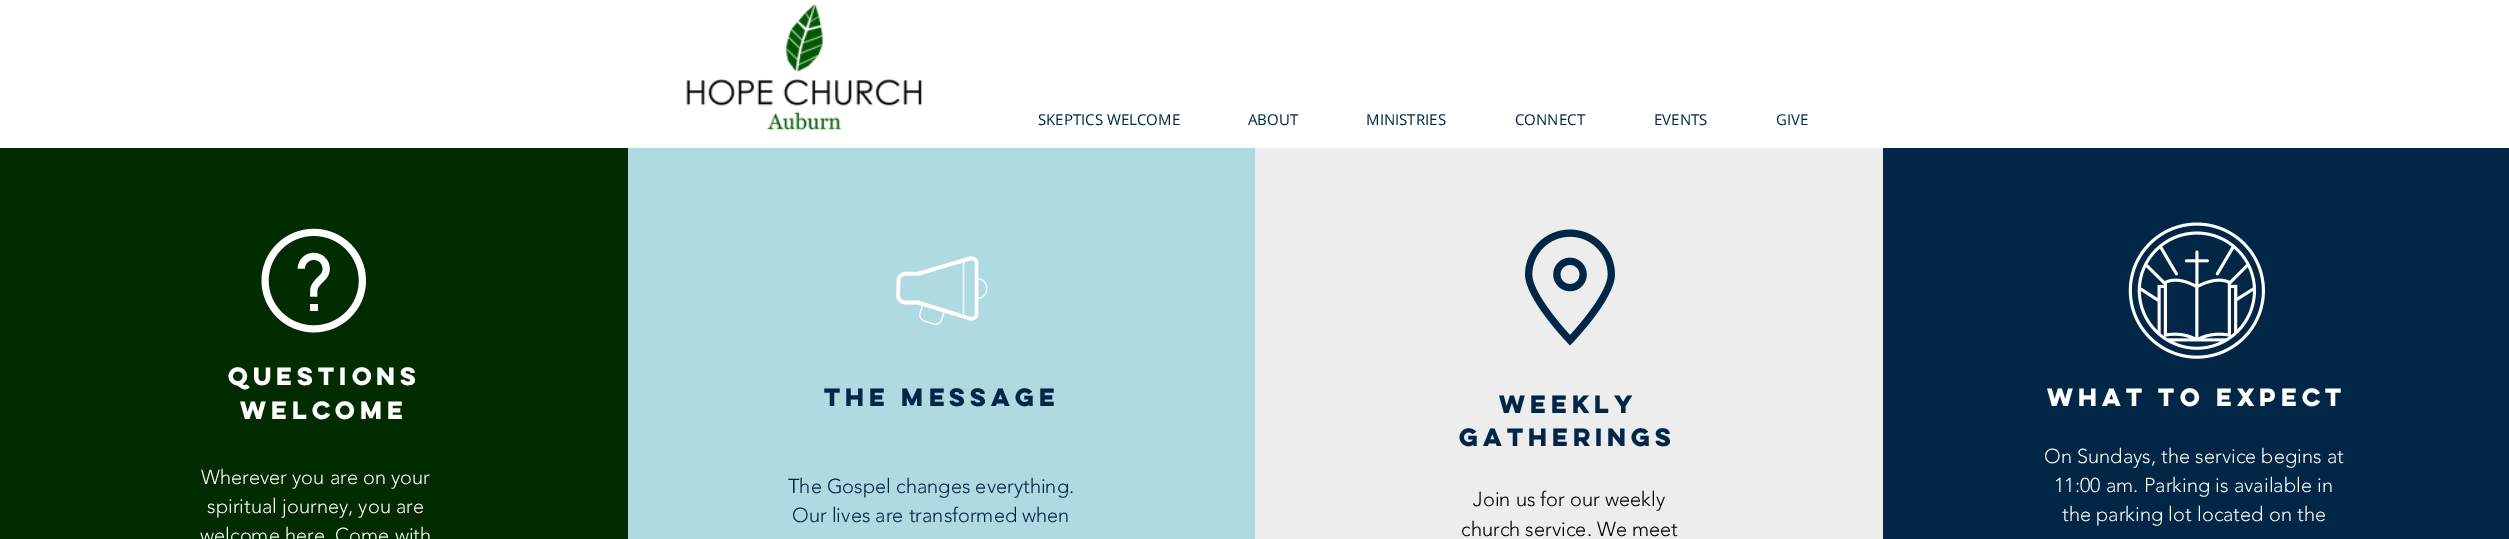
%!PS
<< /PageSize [2509 539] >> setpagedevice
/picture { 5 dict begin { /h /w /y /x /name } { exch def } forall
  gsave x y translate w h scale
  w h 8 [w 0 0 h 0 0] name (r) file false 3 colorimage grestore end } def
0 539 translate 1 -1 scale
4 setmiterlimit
1 setgray
0 0 2509 539 rectfill
(img1.rgb) 686 4 236 127 picture
/OpenSans-Regular [15 0 0 -15 0 0] selectfont
0.004 0.149 0.275 setrgbcolor
1038 125 moveto (SKEPTICS WELCOME) show
1248 125 moveto (ABOUT) show
1366 125 moveto (MINISTRIES) show
1515 125 moveto (CONNECT) show
1654 125 moveto (EVENTS) show
1776 125 moveto (GIVE) show
0 0.173 0 setrgbcolor
0 148 628 391 rectfill
(img2.rgb) 261 228 106 105 picture
/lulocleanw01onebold-Bold [22.5 0 0 -22.5 0 0] selectfont
1 setgray
228 385 moveto (Questions) show
240 419 moveto (WELCOME) show
/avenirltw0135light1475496-Light [20 0 0 -20 0 0] selectfont
201 484 moveto (Wherever you are on your) show
207 513 moveto (spiritual journey, you are) show
200 542 moveto (welcome here. Come with) show
0.69 0.855 0.882 setrgbcolor
628 148 627 391 rectfill
(img3.rgb) 896 256 92 69 picture
/lulocleanw01onebold-Bold [22.5 0 0 -22.5 0 0] selectfont
0.004 0.149 0.275 setrgbcolor
824 406 moveto (THE MESSAGE) show
/avenirltw0135light1475496-Light [20 0 0 -20 0 0] selectfont
788 493 moveto (The Gospel changes everything.) show
792 522 moveto (Our lives are transformed when) show
0.929 setgray
1255 148 628 391 rectfill
(img4.rgb) 1525 229 90 117 picture
/lulocleanw01onebold-Bold [22.5 0 0 -22.5 0 0] selectfont
0.004 0.149 0.275 setrgbcolor
1499 413 moveto (WEEKLY) show
1459 446 moveto (GATHERINGS) show
/avenirltw0135light1475496-Light [20 0 0 -20 0 0] selectfont
0 setgray
1473 506 moveto (Join us for our weekly) show
1461 536 moveto (church service. We meet) show
0.004 0.149 0.275 setrgbcolor
1883 148 626 391 rectfill
(img5.rgb) 2128 222 137 137 picture
/lulocleanw01onebold-Bold [22.5 0 0 -22.5 0 0] selectfont
1 setgray
2047 406 moveto (WHAT TO EXPECT) show
/avenirltw0135light1475496-Light [20 0 0 -20 0 0] selectfont
2044 463 moveto (On Sundays, the service begins at) show
2054 492 moveto (11:00 am. Parking is available in) show
2062 521 moveto (the parking lot located on the) show
showpage
